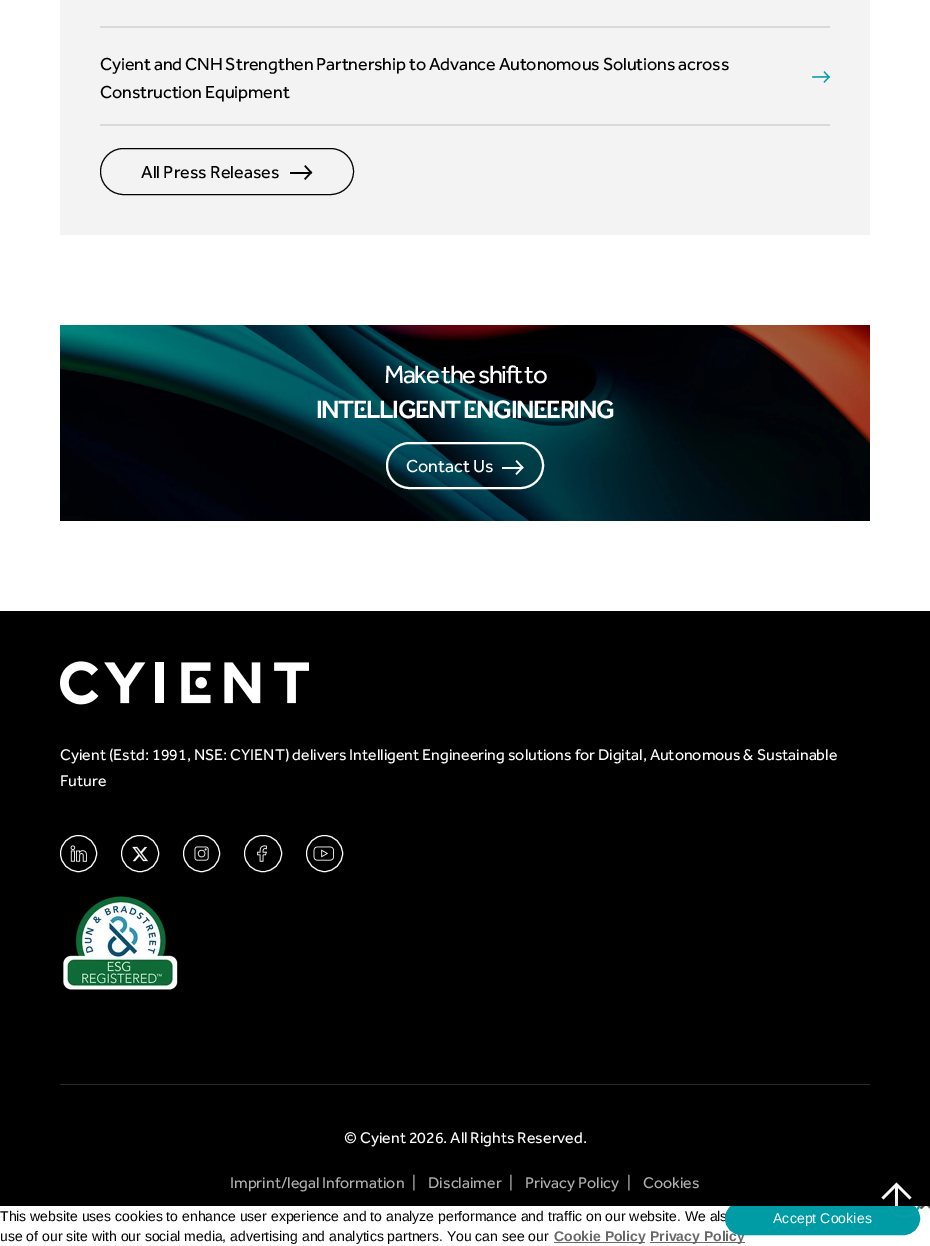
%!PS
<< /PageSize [930 1246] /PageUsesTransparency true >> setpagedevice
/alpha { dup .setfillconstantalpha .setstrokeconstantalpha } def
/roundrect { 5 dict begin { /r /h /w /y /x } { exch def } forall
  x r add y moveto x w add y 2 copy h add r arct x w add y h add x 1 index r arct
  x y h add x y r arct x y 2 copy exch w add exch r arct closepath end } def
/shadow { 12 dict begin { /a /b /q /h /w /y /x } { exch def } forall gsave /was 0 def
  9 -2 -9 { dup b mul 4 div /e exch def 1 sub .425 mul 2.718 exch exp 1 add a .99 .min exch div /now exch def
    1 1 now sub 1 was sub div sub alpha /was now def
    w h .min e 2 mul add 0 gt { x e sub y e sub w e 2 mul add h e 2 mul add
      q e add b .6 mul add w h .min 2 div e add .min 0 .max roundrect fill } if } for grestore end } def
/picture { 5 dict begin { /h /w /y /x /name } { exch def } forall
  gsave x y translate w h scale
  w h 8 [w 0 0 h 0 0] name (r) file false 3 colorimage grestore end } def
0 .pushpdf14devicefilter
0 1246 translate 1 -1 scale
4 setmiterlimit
1 setgray
0 0 930 1246 rectfill
0.953 setgray
60 0 810 235 rectfill
0.851 0.851 0.839 setrgbcolor
100 26 730 2 rectfill
(img1.rgb) 812 71 18 12 picture
100 124 730 2 rectfill
/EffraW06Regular-Regular [18 0 0 -18 0 0] selectfont
0 setgray
100 70 moveto -0.15 0 (Cyient and CNH Strengthen Partnership to Advance Autonomous Solutions across) ashow
100 98 moveto -0.15 0 (Construction Equipment) ashow
100.5 148.5 253 46 23 roundrect stroke
141 178 moveto (All Press Releases) show
(img2.rgb) 290 165 23 15 picture
(img3.rgb) 60 325 810 196 picture
/EffraW06Regular-Regular [26 0 0 -26 0 0] selectfont
1 setgray
384 383 moveto -1.5 0 (Make the shift to) ashow
/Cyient-Medium [26 0 0 -26 0 0] selectfont
316 418 moveto -1.5 0 (INTELLIGENT ENGINEERING) ashow
2 setlinewidth
387 443 156 45 22.5 roundrect stroke
/EffraW06Regular-Regular [18 0 0 -18 0 0] selectfont
406 472 moveto (Contact Us) show
(img4.rgb) 502 460 22 15 picture
0 setgray
0 611 930 595 rectfill
(img5.rgb) 60 661 249 44 picture
/EffraW06Regular-Regular [16 0 0 -16 0 0] selectfont
1 setgray
60 760 moveto (Cyient \(Estd: 1991, NSE: CYIENT\) delivers Intelligent Engineering solutions for Digital, Autonomous & Sustainable) show
60 786 moveto (Future) show
1 setlinewidth
newpath 78.5 853.5 18 0 360 arc closepath stroke
(img6.rgb) 70 845 17 17 picture
121.5 835.5 37 36 18 roundrect stroke
(img7.rgb) 132 846 16 16 picture
newpath 201.5 853.5 18 0 360 arc closepath stroke
(img8.rgb) 194 846 15 15 picture
244.5 835.5 37 36 18 roundrect stroke
(img9.rgb) 257 845 10 17 picture
newpath 324.5 853.5 18 0 360 arc closepath stroke
(img10.rgb) 313 846 22 15 picture
(img11.rgb) 63 896 115 94 picture
0.169 setgray
60 1084 810 1 rectfill
1 setgray
344 1143 moveto (© Cyient 2026. All Rights Reserved.) show
0.682 setgray
230 1188 moveto (Imprint/legal Information) show
412 1188 moveto (|) show
428 1188 moveto (Disclaimer) show
509 1188 moveto (|) show
525 1188 moveto (Privacy Policy) show
627 1188 moveto (|) show
643 1188 moveto (Cookies) show
gsave
newpath 881.5 1219.5 moveto 881.5 1182.5 lineto 911.5 1182.5 lineto 911.5 1219.5 lineto closepath clip newpath
1 setgray
2.8 setlinewidth
newpath 896.5 1184.5 moveto 896.5 1219.5 lineto 910.5 1198.5 moveto 896.5 1184.5 lineto 882.5 1198.5 lineto stroke
grestore
0 setgray
0 1206 930 40 0 9 0.2 shadow
1 setgray
0 1206 930 40 rectfill
/LiberationSans-Regular [14 0 0 -14 0 0] selectfont
0 setgray
0 1221 moveto (This website uses cookies to enhance user experience and to analyze performance and traffic on our website. We als) show
0.412 setgray
650 1242 95 1 rectfill
/LiberationSans-Bold [14 0 0 -14 0 0] selectfont
650 1241 moveto (Privacy Policy) show
gsave
0 1206 930 40 rectclip
0 0.612 0.651 setrgbcolor
725.5 1202.5 194 32 16 roundrect gsave fill grestore
stroke
0.031 0.612 0.651 setrgbcolor
2 setlinewidth
newpath 904 1201 16 0 360 arc closepath stroke
grestore
(img12.rgb) 920 1206 10 3 picture
/LiberationSans-Regular [14 0 0 -14 0 0] selectfont
0 setgray
0 1241 moveto (use of our site with our social media, advertising and analytics partners. You can see our) show
0.412 setgray
554 1242 91 1 rectfill
/LiberationSans-Bold [14 0 0 -14 0 0] selectfont
554 1241 moveto (Cookie Policy) show
/LiberationSans-Regular [14 0 0 -14 0 0] selectfont
1 setgray
773 1223 moveto 0.1 0 (Accept Cookies) ashow
.poppdf14devicefilter showpage
